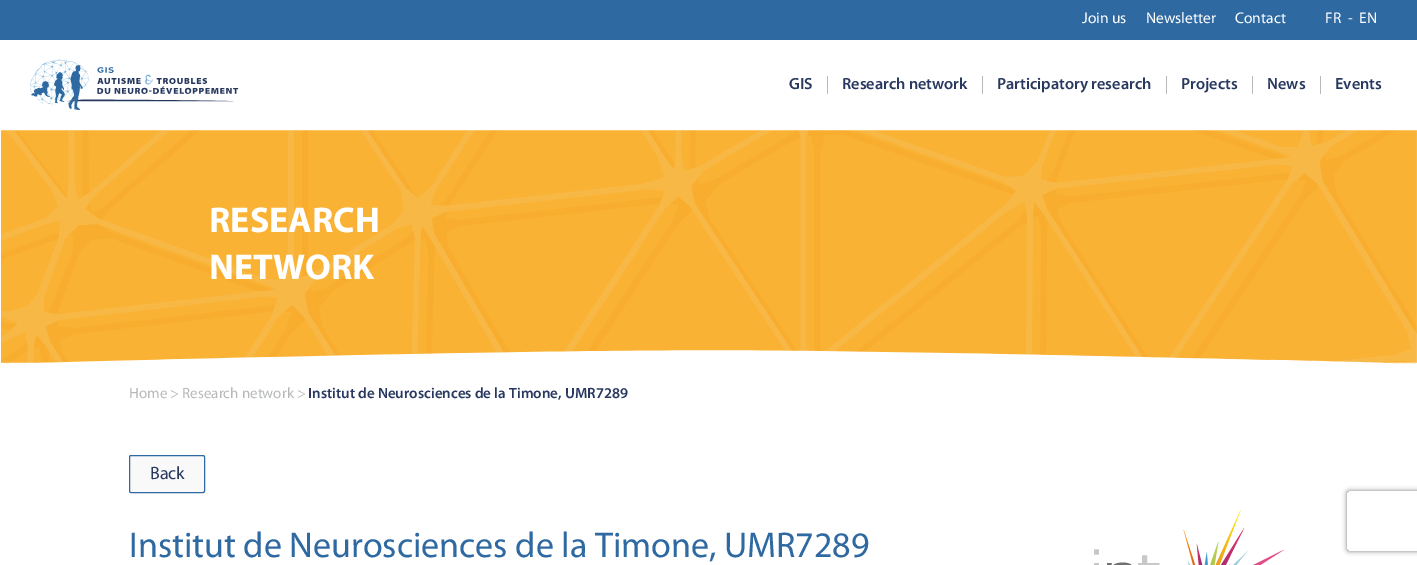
%!PS
<< /PageSize [1417 565] /PageUsesTransparency true >> setpagedevice
/alpha { dup .setfillconstantalpha .setstrokeconstantalpha } def
/roundrect { 5 dict begin { /r /h /w /y /x } { exch def } forall
  x r add y moveto x w add y 2 copy h add r arct x w add y h add x 1 index r arct
  x y h add x y r arct x y 2 copy exch w add exch r arct closepath end } def
/shadow { 12 dict begin { /a /b /q /h /w /y /x } { exch def } forall gsave /was 0 def
  9 -2 -9 { dup b mul 4 div /e exch def 1 sub .425 mul 2.718 exch exp 1 add a .99 .min exch div /now exch def
    1 1 now sub 1 was sub div sub alpha /was now def
    w h .min e 2 mul add 0 gt { x e sub y e sub w e 2 mul add h e 2 mul add
      q e add b .6 mul add w h .min 2 div e add .min 0 .max roundrect fill } if } for grestore end } def
/picture { 5 dict begin { /h /w /y /x /name } { exch def } forall
  gsave x y translate w h scale
  w h 8 [w 0 0 h 0 0] name (r) file false 3 colorimage grestore end } def
0 .pushpdf14devicefilter
0 565 translate 1 -1 scale
4 setmiterlimit
1 setgray
0 0 1417 565 rectfill
0.184 0.412 0.635 setrgbcolor
0 0 1417 40 rectfill
/Myriad-Regular [15.5 0 0 -15.5 0 0] selectfont
1 setgray
1082 23 moveto (Join us) show
1146 23 moveto (Newsletter) show
1235 23 moveto (Contact) show
1325 23 moveto (FR) show
1348 23 moveto (-) show
1359 23 moveto (EN) show
(img1.rgb) 30 59 209 51 picture
/Myriad-SemiBold [16.25 0 0 -16.25 0 0] selectfont
0.157 0.22 0.373 setrgbcolor
789 89 moveto (GIS) show
0.714 0.722 0.729 setrgbcolor
827 76 1 18 rectfill
0.157 0.22 0.373 setrgbcolor
842 89 moveto (Research network) show
0.714 0.722 0.729 setrgbcolor
982 76 1 18 rectfill
0.157 0.22 0.373 setrgbcolor
997 89 moveto (Participatory research) show
0.714 0.722 0.729 setrgbcolor
1166 76 1 18 rectfill
0.157 0.22 0.373 setrgbcolor
1181 89 moveto (Projects) show
0.714 0.722 0.729 setrgbcolor
1252 76 1 18 rectfill
0.157 0.22 0.373 setrgbcolor
1267 89 moveto (News) show
0.714 0.722 0.729 setrgbcolor
1320 76 1 18 rectfill
0.157 0.22 0.373 setrgbcolor
1335 89 moveto (Events) show
(img2.rgb) 0 130 1417 234 picture
/Myriad-Bold [36 0 0 -36 0 0] selectfont
1 setgray
209 232 moveto (RESEARCH) show
209 279 moveto (NETWORK) show
/Myriad-Regular [15 0 0 -15 0 0] selectfont
0.714 0.722 0.729 setrgbcolor
129 398 moveto (Home > Research network >) show
/Myriad-SemiBold [15 0 0 -15 0 0] selectfont
0.157 0.22 0.373 setrgbcolor
308 398 moveto (Institut de Neurosciences de la Timone, UMR7289) show
0.976 setgray
129.5 455.5 75 37 1.5 roundrect gsave fill grestore
0.184 0.412 0.635 setrgbcolor
stroke
/Myriad-Regular [18 0 0 -18 0 0] selectfont
0.157 0.22 0.373 setrgbcolor
150 479 moveto (Back) show
/Myriad-Regular [36 0 0 -36 0 0] selectfont
0.184 0.412 0.635 setrgbcolor
129 557 moveto (Institut de Neurosciences de la Timone, UMR7289) show
(img3.rgb) 1094 510 190 55 picture
gsave
newpath 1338 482 moveto 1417 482 lineto 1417 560 lineto 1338 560 lineto closepath 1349 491 moveto 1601 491 lineto 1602 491 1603 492 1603 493 curveto 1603 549 lineto 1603 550 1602 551 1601 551 curveto 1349 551 lineto 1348 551 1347 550 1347 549 curveto 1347 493 lineto 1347 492 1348 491 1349 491 curveto closepath eoclip newpath
0.502 setgray
1347 491 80 60 2 2.5 1 shadow
grestore
.poppdf14devicefilter showpage
